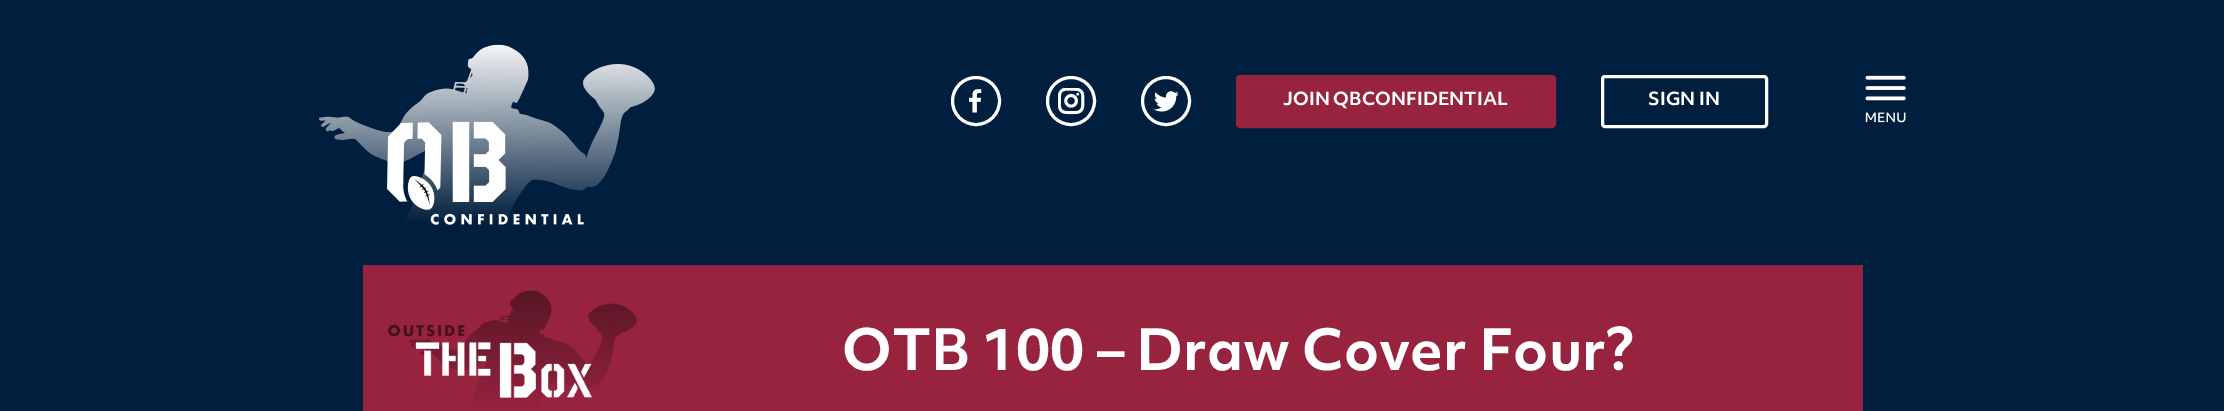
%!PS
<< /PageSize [2224 411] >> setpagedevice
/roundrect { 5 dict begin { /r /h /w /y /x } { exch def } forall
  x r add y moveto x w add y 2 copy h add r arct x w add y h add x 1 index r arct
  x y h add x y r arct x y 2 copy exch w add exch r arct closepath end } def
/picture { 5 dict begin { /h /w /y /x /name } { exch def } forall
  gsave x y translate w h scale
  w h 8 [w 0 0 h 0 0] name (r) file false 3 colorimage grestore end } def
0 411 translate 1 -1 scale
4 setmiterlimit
0 0.118 0.239 setrgbcolor
0 0 2224 411 rectfill
(img1.rgb) 319 44 336 181 picture
1 setgray
3 setlinewidth
newpath 976 101 23.5 0 360 arc closepath stroke
(img2.rgb) 969 89 13 24 picture
newpath 1071 101 23.5 0 360 arc closepath stroke
(img3.rgb) 1058 88 27 27 picture
newpath 1166 101 23.5 0 360 arc closepath stroke
(img4.rgb) 1154 91 25 21 picture
0.592 0.137 0.247 setrgbcolor
1237.5 76.5 317 50 2.5 roundrect gsave fill grestore
stroke
/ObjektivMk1-Bold [17.5 0 0 -17.5 0 0] selectfont
1 setgray
1283 105 moveto (JOIN QBCONFIDENTIAL) show
1602.5 76.5 164 50 2.5 roundrect stroke
1648 105 moveto (SIGN IN) show
(img5.rgb) 1865 75 41 48 picture
0.592 0.137 0.247 setrgbcolor
363 265 1500 146 rectfill
(img6.rgb) 388 290 249 117 picture
/ObjektivMk1-Bold [55 0 0 -55 0 0] selectfont
1 setgray
842 370 moveto (OTB 100 – Draw Cover Four?) show
showpage
